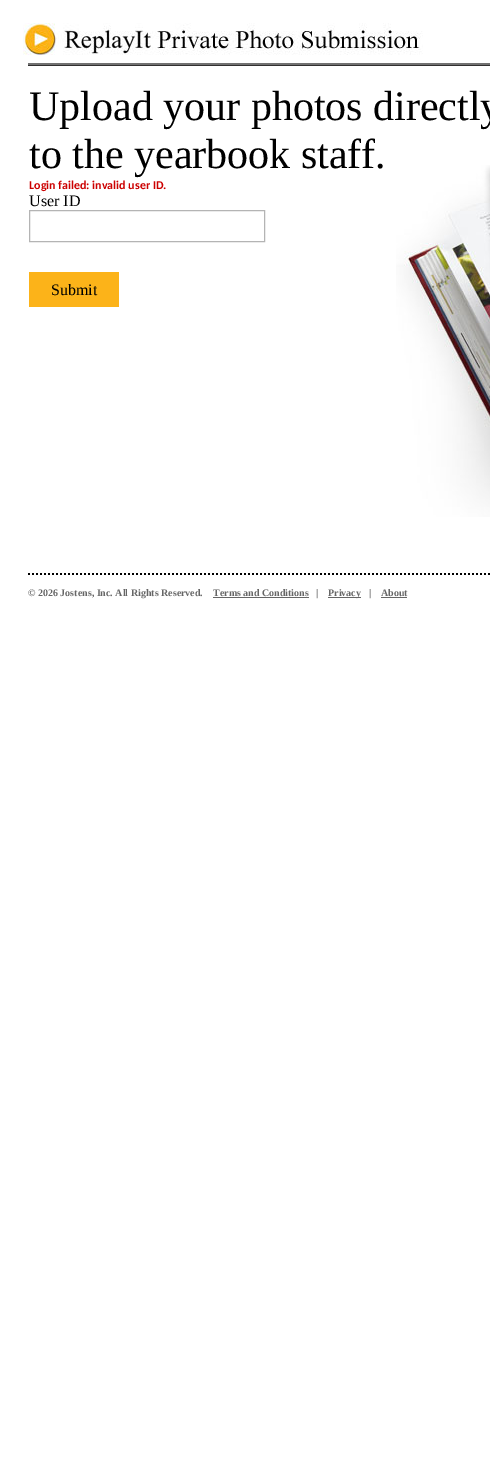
%!PS
<< /PageSize [490 1476] >> setpagedevice
/picture { 5 dict begin { /h /w /y /x /name } { exch def } forall
  gsave x y translate w h scale
  w h 8 [w 0 0 h 0 0] name (r) file false 3 colorimage grestore end } def
0 1476 translate 1 -1 scale
4 setmiterlimit
1 setgray
0 0 490 1476 rectfill
(img1.rgb) 23 23 400 32 picture
0.443 setgray
28 63 462 2 rectfill
0.192 0.188 0.188 setrgbcolor
28 65 462 1 rectfill
(img2.rgb) 396 165 94 352 picture
/LiberationSerif-Regular [42 0 0 -42 0 0] selectfont
0 setgray
29 120 moveto (Upload your photos directly) show
29 168 moveto (to the yearbook staff.) show
/Carlito-Bold [12 0 0 -12 0 0] selectfont
0.8 0 0 setrgbcolor
29 189 moveto (Login failed: invalid user ID.) show
/LiberationSerif-Regular [16 0 0 -16 0 0] selectfont
0 setgray
29 206 moveto (User ID) show
0.706 setgray
29.5 210.5 235 31 rectstroke
0.988 0.702 0.098 setrgbcolor
29 272 90 35 rectfill
0 setgray
51 295 moveto (Submit) show
(img3.rgb) 28 573 462 2 picture
/LiberationSerif-Bold [10 0 0 -10 0 0] selectfont
0.4 setgray
28 596 moveto (© 2026 Jostens, Inc. All Rights Reserved.) show
213 596 moveto (Terms and Conditions) show
213 597 96 1 rectfill
316 596 moveto (|) show
328 597 33 1 rectfill
328 596 moveto (Privacy) show
369 596 moveto (|) show
381 596 moveto (About) show
381 597 26 1 rectfill
showpage
